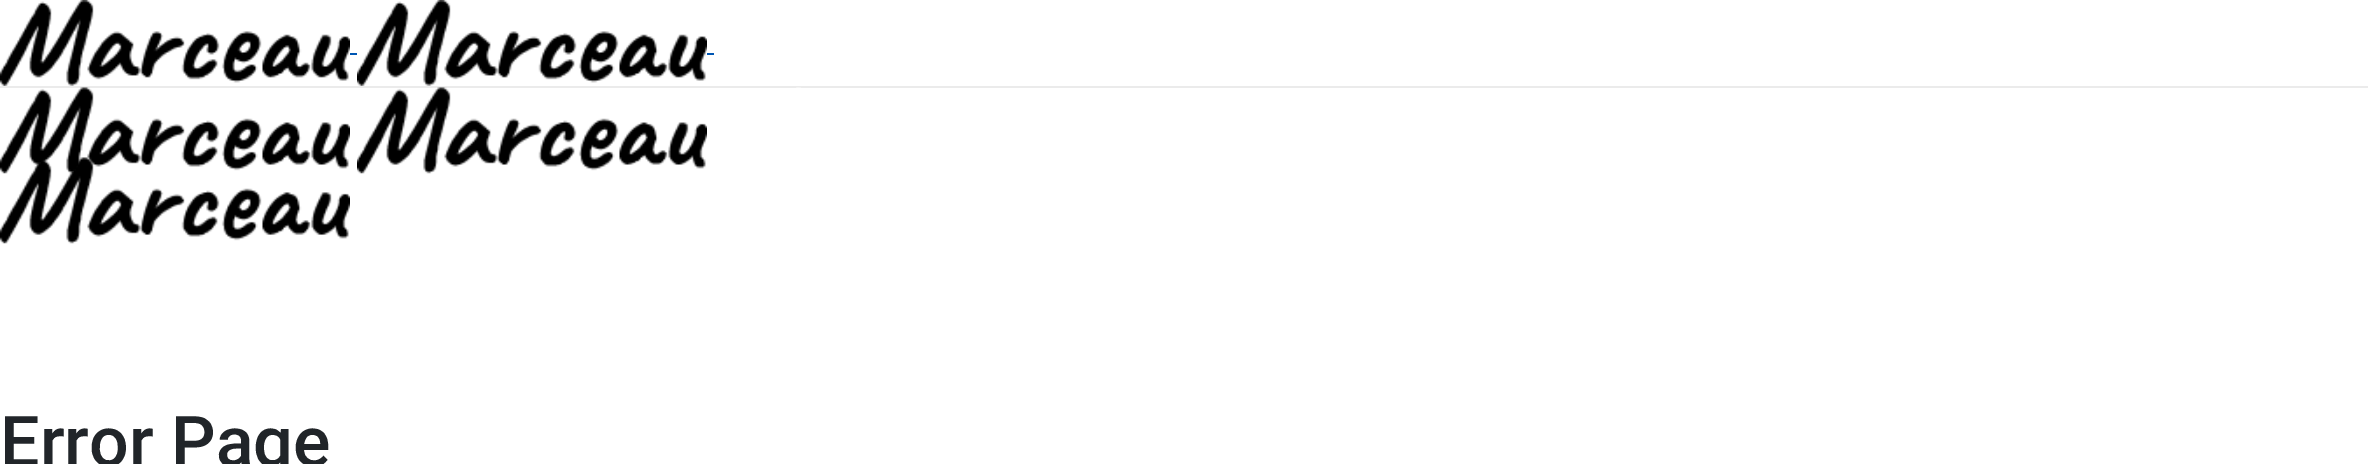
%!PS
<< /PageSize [2368 464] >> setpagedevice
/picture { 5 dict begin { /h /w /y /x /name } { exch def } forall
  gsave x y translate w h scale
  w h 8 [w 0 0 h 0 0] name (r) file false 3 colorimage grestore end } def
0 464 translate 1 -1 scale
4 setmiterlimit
1 setgray
0 0 2368 464 rectfill
0.922 setgray
0 86 2368 2 rectfill
(img1.rgb) 0 0 350 86 picture
0 0.337 0.702 setrgbcolor
350 53 7 2 rectfill
(img2.rgb) 357 0 350 86 picture
707 53 7 2 rectfill
(img3.rgb) 0 87 350 87 picture
(img4.rgb) 357 87 350 87 picture
(img5.rgb) 796 87 5 1 picture
(img6.rgb) 0 157 350 87 picture
/Roboto-Medium [70 0 0 -70 0 0] selectfont
0.129 0.145 0.161 setrgbcolor
0 466 moveto (Error Page) show
showpage
